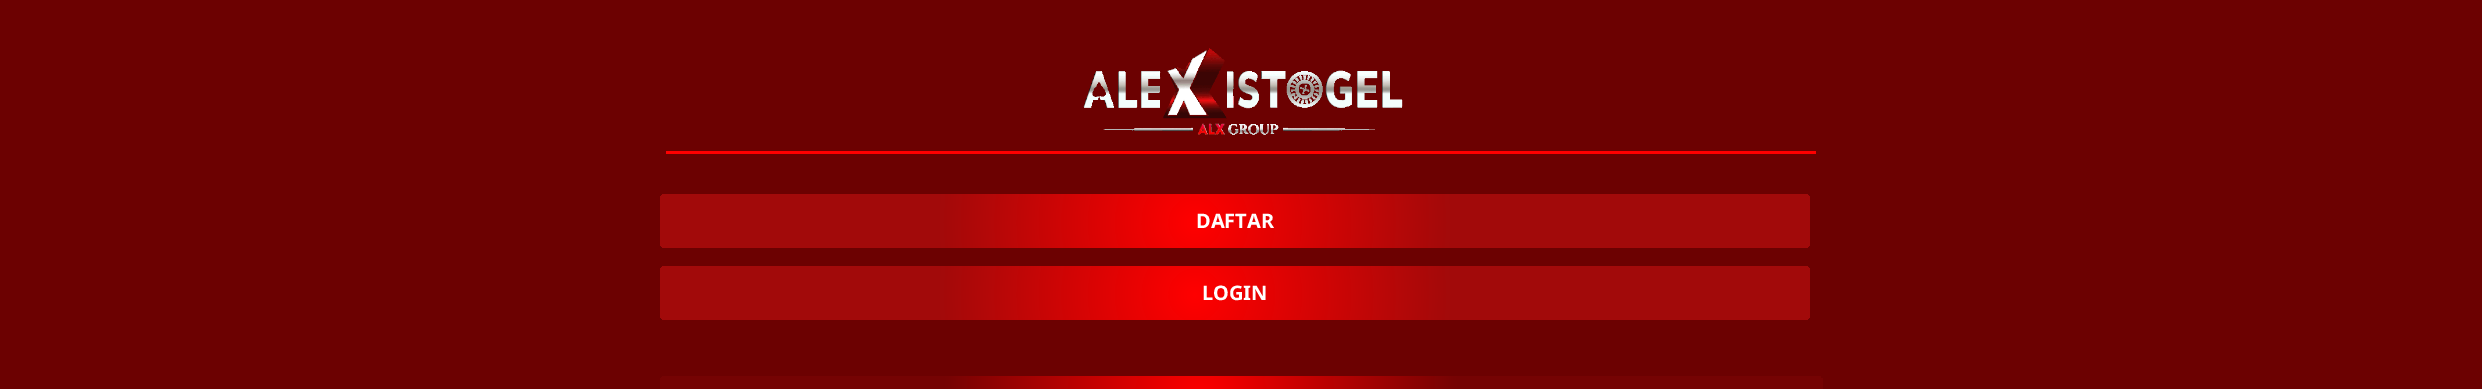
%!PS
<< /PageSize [2482 389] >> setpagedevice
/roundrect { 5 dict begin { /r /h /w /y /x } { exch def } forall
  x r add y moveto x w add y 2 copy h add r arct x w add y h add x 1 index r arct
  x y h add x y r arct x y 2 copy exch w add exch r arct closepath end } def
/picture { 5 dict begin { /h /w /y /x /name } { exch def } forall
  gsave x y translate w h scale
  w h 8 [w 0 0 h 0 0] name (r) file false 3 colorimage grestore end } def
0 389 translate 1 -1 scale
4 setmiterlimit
0.424 0.004 0.004 setrgbcolor
0 0 2482 389 rectfill
1 0 0 setrgbcolor
666 151 1150 3 rectfill
(img1.rgb) 1083 48 320 87 picture
gsave 660 194 1150 54 6 roundrect clip newpath 1195 223 translate 268 268 scale
<< /ShadingType 3 /ColorSpace /DeviceRGB /Coords [0 0 0 0 0 1] /Extend [true true] /Function << /FunctionType 3 /Domain [0 1] /Functions [<< /FunctionType 2 /Domain [0 1] /C0 [1 0 0] /C1 [0.635 0.039 0.039] /N 1 >> << /FunctionType 2 /Domain [0 1] /C0 [0.635 0.039 0.039] /C1 [0.635 0.039 0.039] /N 1 >>] /Bounds [0.96] /Encode [0 1 0 1] >> >> shfill grestore
/NotoSans-Bold [20 0 0 -20 0 0] selectfont
1 setgray
1196 228 moveto (DAFTAR) show
gsave 660 266 1150 54 6 roundrect clip newpath 1195 295 translate 268 268 scale
<< /ShadingType 3 /ColorSpace /DeviceRGB /Coords [0 0 0 0 0 1] /Extend [true true] /Function << /FunctionType 3 /Domain [0 1] /Functions [<< /FunctionType 2 /Domain [0 1] /C0 [1 0 0] /C1 [0.635 0.039 0.039] /N 1 >> << /FunctionType 2 /Domain [0 1] /C0 [0.635 0.039 0.039] /C1 [0.635 0.039 0.039] /N 1 >>] /Bounds [0.96] /Encode [0 1 0 1] >> >> shfill grestore
1202 300 moveto (LOGIN) show
gsave
660 376 1163 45 6 roundrect clip newpath
gsave newpath 661 376 moveto 1821 376 lineto 1821 378 lineto 661 378 lineto closepath clip newpath 1201 358 translate 268 268 scale
<< /ShadingType 3 /ColorSpace /DeviceRGB /Coords [0 0 0 0 0 1] /Extend [true true] /Function << /FunctionType 3 /Domain [0 1] /Functions [<< /FunctionType 2 /Domain [0 1] /C0 [1 0 0] /C1 [0.459 0.012 0.012] /N 1 >> << /FunctionType 2 /Domain [0 1] /C0 [0.459 0.012 0.012] /C1 [0.459 0.012 0.012] /N 1 >>] /Bounds [0.96] /Encode [0 1 0 1] >> >> shfill grestore
gsave newpath 660 378 moveto 661 378 lineto 661 389 lineto 660 389 lineto closepath clip newpath 41 401 translate 268 268 scale
<< /ShadingType 3 /ColorSpace /DeviceRGB /Coords [0 0 0 0 0 1] /Extend [true true] /Function << /FunctionType 3 /Domain [0 1] /Functions [<< /FunctionType 2 /Domain [0 1] /C0 [1 0 0] /C1 [0.459 0.012 0.012] /N 1 >> << /FunctionType 2 /Domain [0 1] /C0 [0.459 0.012 0.012] /C1 [0.459 0.012 0.012] /N 1 >>] /Bounds [0.96] /Encode [0 1 0 1] >> >> shfill grestore
grestore
gsave newpath 661 378 moveto 1821 378 lineto 1821 389 lineto 661 389 lineto closepath clip newpath 1201 401 translate 268 268 scale
<< /ShadingType 3 /ColorSpace /DeviceRGB /Coords [0 0 0 0 0 1] /Extend [true true] /Function << /FunctionType 3 /Domain [0 1] /Functions [<< /FunctionType 2 /Domain [0 1] /C0 [1 0 0] /C1 [0.459 0.012 0.012] /N 1 >> << /FunctionType 2 /Domain [0 1] /C0 [0.459 0.012 0.012] /C1 [0.459 0.012 0.012] /N 1 >>] /Bounds [0.96] /Encode [0 1 0 1] >> >> shfill grestore
gsave
660 376 1163 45 6 roundrect clip newpath
gsave newpath 1821 378 moveto 1823 378 lineto 1823 389 lineto 1821 389 lineto closepath clip newpath 2361 401 translate 268 268 scale
<< /ShadingType 3 /ColorSpace /DeviceRGB /Coords [0 0 0 0 0 1] /Extend [true true] /Function << /FunctionType 3 /Domain [0 1] /Functions [<< /FunctionType 2 /Domain [0 1] /C0 [1 0 0] /C1 [0.459 0.012 0.012] /N 1 >> << /FunctionType 2 /Domain [0 1] /C0 [0.459 0.012 0.012] /C1 [0.459 0.012 0.012] /N 1 >>] /Bounds [0.96] /Encode [0 1 0 1] >> >> shfill grestore
grestore
showpage
